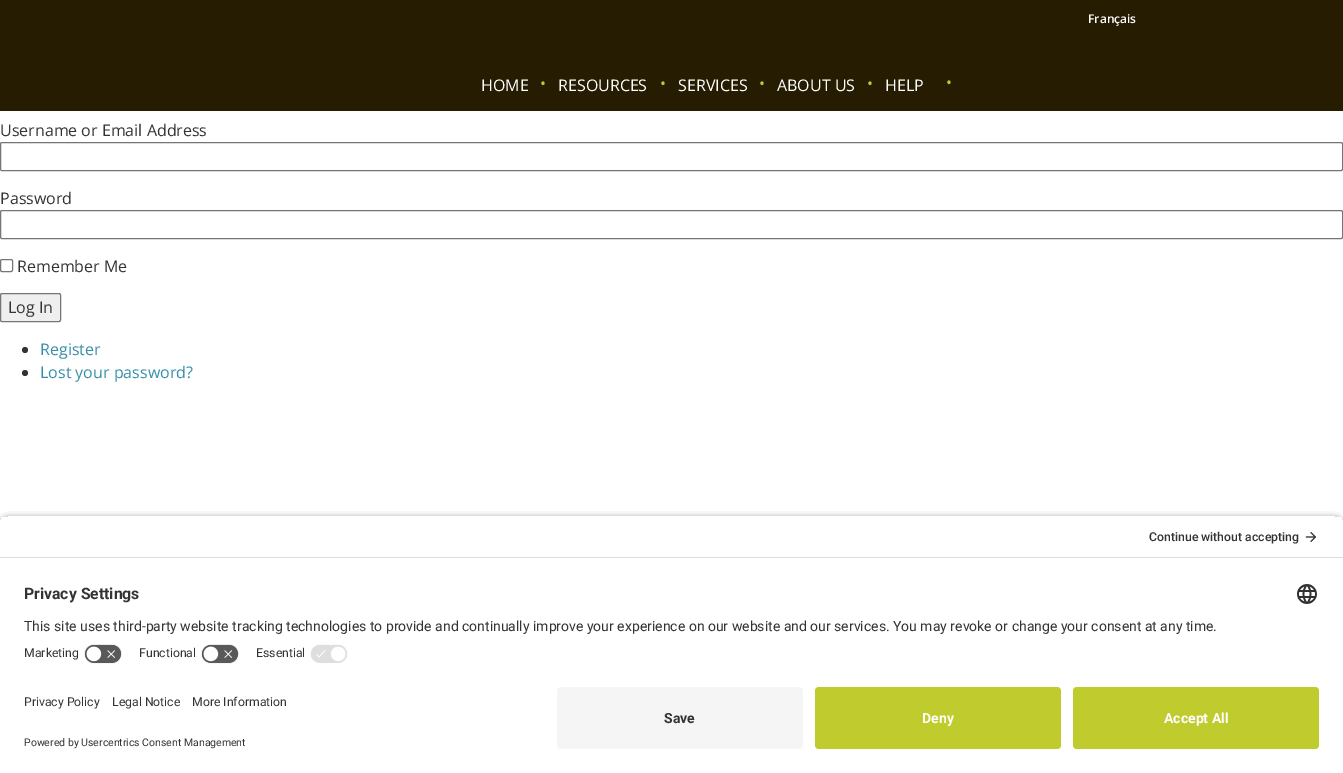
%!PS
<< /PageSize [1343 773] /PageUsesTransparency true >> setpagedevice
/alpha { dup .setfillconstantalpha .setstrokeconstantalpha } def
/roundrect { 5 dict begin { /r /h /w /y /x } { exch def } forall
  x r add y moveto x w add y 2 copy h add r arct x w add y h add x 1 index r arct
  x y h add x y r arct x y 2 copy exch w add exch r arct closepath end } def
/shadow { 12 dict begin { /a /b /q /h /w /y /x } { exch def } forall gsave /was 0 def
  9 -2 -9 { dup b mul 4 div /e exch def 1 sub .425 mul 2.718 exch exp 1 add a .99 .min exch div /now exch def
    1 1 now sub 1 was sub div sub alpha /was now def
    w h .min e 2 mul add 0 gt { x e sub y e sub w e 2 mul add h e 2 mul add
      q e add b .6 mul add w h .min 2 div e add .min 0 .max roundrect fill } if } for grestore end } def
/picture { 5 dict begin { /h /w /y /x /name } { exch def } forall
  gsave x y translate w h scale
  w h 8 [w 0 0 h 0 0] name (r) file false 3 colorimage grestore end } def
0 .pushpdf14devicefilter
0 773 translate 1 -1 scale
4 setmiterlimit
1 setgray
0 0 1343 773 rectfill
0.145 0.11 0.008 setrgbcolor
0 0 1343 111 rectfill
/OpenSans-SemiBold [12 0 0 -12 0 0] selectfont
1 setgray
1088 23 moveto (Français) show
/OpenSans-Regular [16 0 0 -16 0 0] selectfont
481 91 moveto (HOME) show
0.753 0.796 0.18 setrgbcolor
540 89 moveto (•) show
1 setgray
558 91 moveto (RESOURCES) show
0.753 0.796 0.18 setrgbcolor
660 89 moveto (•) show
1 setgray
678 91 moveto (SERVICES) show
0.753 0.796 0.18 setrgbcolor
759 89 moveto (•) show
1 setgray
777 91 moveto (ABOUT US) show
0.753 0.796 0.18 setrgbcolor
867 89 moveto (•) show
1 setgray
885 91 moveto (HELP) show
0.753 0.796 0.18 setrgbcolor
946 88 moveto (•) show
0.2 setgray
0 136 moveto (Username or Email Address) show
0.463 setgray
0.5 142.5 1342 28 1.5 roundrect stroke
0.2 setgray
0 204 moveto (Password) show
0.463 setgray
0.5 210.5 1342 28 1.5 roundrect stroke
0.5 259.5 12 12 1.5 roundrect stroke
0.2 setgray
17 272 moveto (Remember Me) show
0.937 setgray
0.5 293.5 60 28 1.5 roundrect gsave fill grestore
0.463 setgray
stroke
0.2 setgray
8 313 moveto (Log In) show
newpath 25 350 3 0 360 arc closepath fill
0.216 0.557 0.659 setrgbcolor
40 355 moveto (Register) show
0.2 setgray
newpath 25 373 3 0 360 arc closepath fill
0.216 0.557 0.659 setrgbcolor
40 378 moveto (Lost your password?) show
gsave
newpath 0 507 moveto 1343 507 lineto 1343 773 lineto 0 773 lineto closepath 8 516 moveto 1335 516 lineto 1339.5 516 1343 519.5 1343 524 curveto 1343 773 lineto 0 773 lineto 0 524 lineto 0 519.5 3.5 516 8 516 curveto closepath eoclip newpath
0 setgray
0 519 1343 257 8 3.5 0.8 shadow
grestore
gsave
newpath 8 516 moveto 1335 516 lineto 1339.5 516 1343 519.5 1343 524 curveto 1343 679 lineto 0 679 lineto 0 524 lineto 0 519.5 3.5 516 8 516 curveto closepath clip newpath
1 setgray
0 517 1343 40 rectfill
grestore
0.871 setgray
0 557 1343 1 rectfill
/Roboto-Medium [12.25 0 0 -12.25 0 0] selectfont
0.2 setgray
1149 541 moveto (Continue without accepting) show
(img1.rgb) 1305 532 11 10 picture
/Roboto-Bold [15.75 0 0 -15.75 0 0] selectfont
24 599 moveto (Privacy Settings) show
(img2.rgb) 1297 584 20 20 picture
/Roboto-Regular [14 0 0 -14 0 0] selectfont
24 631 moveto (This site uses third-party website tracking technologies to provide and continually improve your experience on our website and our services. You may revoke or change your consent at any time.) show
/Roboto-Regular [12.25 0 0 -12.25 0 0] selectfont
24 657 moveto (Marketing) show
(img3.rgb) 84 644 38 20 picture
139 657 moveto (Functional) show
(img3.rgb) 201 644 38 20 picture
256 657 moveto (Essential) show
(img4.rgb) 310 644 38 19 picture
24 706 moveto (Privacy Policy) show
112 706 moveto (Legal Notice) show
192 706 moveto (More Information) show
/Roboto-Regular [10.5 0 0 -10.5 0 0] selectfont
24 746 moveto (Powered by Usercentrics Consent Management) show
0.961 setgray
557 687 246 62 4 roundrect fill
/Roboto-Bold [14 0 0 -14 0 0] selectfont
0.2 setgray
664 723 moveto (Save) show
0.753 0.796 0.18 setrgbcolor
815 687 246 62 4 roundrect fill
1 setgray
922 723 moveto (Deny) show
0.753 0.796 0.18 setrgbcolor
1073 687 246 62 4 roundrect fill
1 setgray
1164 723 moveto (Accept All) show
.poppdf14devicefilter showpage
